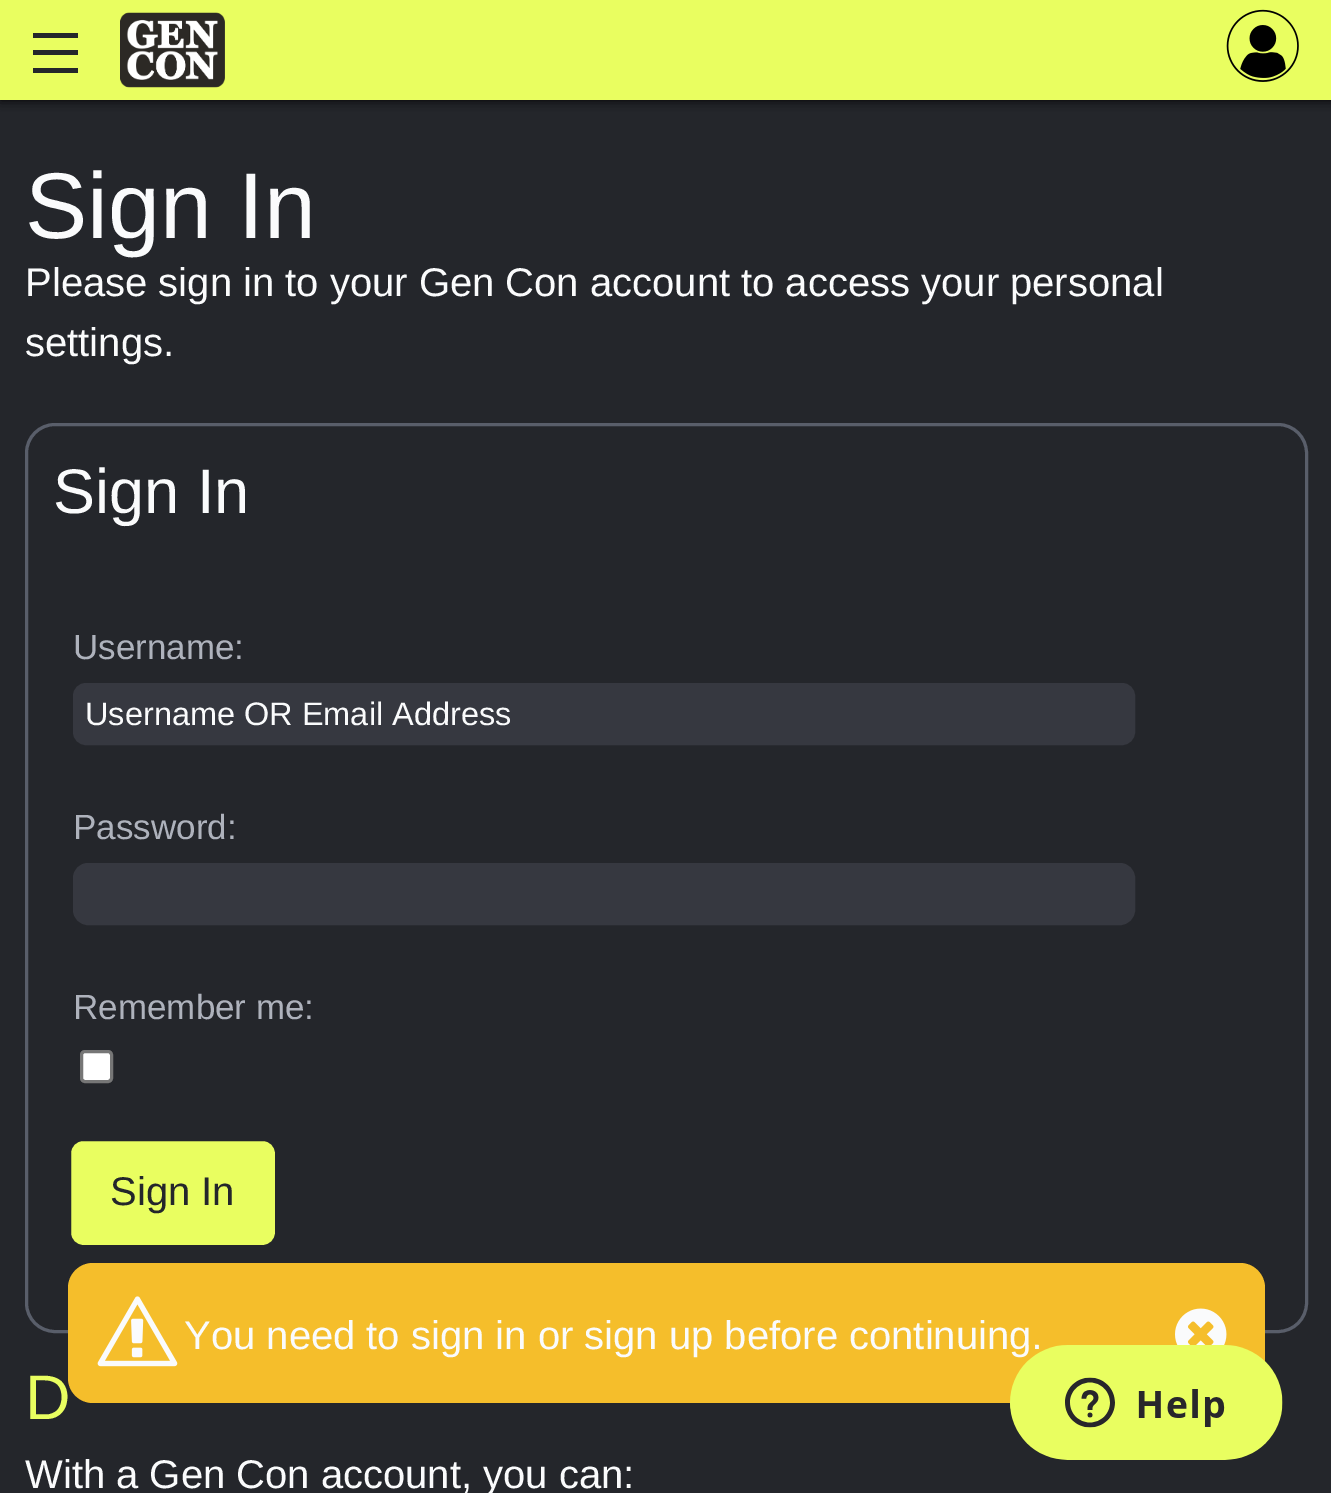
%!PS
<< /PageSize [1331 1493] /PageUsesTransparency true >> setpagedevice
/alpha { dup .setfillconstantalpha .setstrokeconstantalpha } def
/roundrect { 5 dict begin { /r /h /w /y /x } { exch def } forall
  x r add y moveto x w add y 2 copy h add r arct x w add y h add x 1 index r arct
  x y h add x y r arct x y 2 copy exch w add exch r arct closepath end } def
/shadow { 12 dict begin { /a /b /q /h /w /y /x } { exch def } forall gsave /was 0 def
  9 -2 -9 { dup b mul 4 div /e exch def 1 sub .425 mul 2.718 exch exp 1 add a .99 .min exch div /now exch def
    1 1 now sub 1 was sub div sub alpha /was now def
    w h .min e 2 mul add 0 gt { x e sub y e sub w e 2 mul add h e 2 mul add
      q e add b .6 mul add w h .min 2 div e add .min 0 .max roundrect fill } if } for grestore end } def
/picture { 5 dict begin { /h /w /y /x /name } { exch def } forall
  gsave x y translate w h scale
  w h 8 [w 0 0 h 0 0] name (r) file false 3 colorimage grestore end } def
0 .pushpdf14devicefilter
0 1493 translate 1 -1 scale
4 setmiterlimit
0.141 0.149 0.169 setrgbcolor
0 0 1331 1493 rectfill
0.914 0.996 0.376 setrgbcolor
0 0 1331 100 rectfill
gsave
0 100 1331 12 rectclip
0 setgray
0 0 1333 100 0 6 1 shadow
grestore
0.141 0.149 0.169 setrgbcolor
33 68 45 5 rectfill
33 50 45 5 rectfill
33 33 45 5 rectfill
(img1.rgb) 120 12 105 76 picture
(img2.rgb) 1226 9 73 73 picture
/LiberationSans-Regular [93.5 0 0 -93.5 0 0] selectfont
0.98 0.984 0.988 setrgbcolor
25 238 moveto (Sign In) show
/LiberationSans-Regular [40 0 0 -40 0 0] selectfont
25 296 moveto (Please sign in to your Gen Con account to access your personal) show
25 356 moveto (settings.) show
0.349 0.369 0.416 setrgbcolor
3 setlinewidth
26.5 424.5 1280 907 28.5 roundrect stroke
/LiberationSans-Regular [63 0 0 -63 0 0] selectfont
0.98 0.984 0.988 setrgbcolor
53 513 moveto (Sign In) show
/LiberationSans-Regular [35 0 0 -35 0 0] selectfont
0.682 0.698 0.737 setrgbcolor
73 659 moveto (Username:) show
0.212 0.22 0.251 setrgbcolor
74.5 684.5 1059 59 11.5 roundrect gsave fill grestore
stroke
/LiberationSans-Regular [32.5 0 0 -32.5 0 0] selectfont
0.98 0.984 0.988 setrgbcolor
85 725 moveto (Username OR Email Address) show
/LiberationSans-Regular [35 0 0 -35 0 0] selectfont
0.682 0.698 0.737 setrgbcolor
73 839 moveto (Password:) show
0.212 0.22 0.251 setrgbcolor
74.5 864.5 1059 59 13.5 roundrect gsave fill grestore
stroke
0.682 0.698 0.737 setrgbcolor
73 1019 moveto (Remember me:) show
1 setgray
81.5 1051.5 30 30 3.5 roundrect gsave fill grestore
0.463 setgray
stroke
0.914 0.996 0.376 setrgbcolor
69.5 1139.5 207 107 13.5 roundrect gsave fill grestore
0.141 0.149 0.169 setrgbcolor
stroke
/LiberationSans-Regular [40 0 0 -40 0 0] selectfont
110 1205 moveto (Sign In) show
/LiberationSans-Regular [63 0 0 -63 0 0] selectfont
0.914 0.996 0.376 setrgbcolor
25 1419 moveto (D) show
/LiberationSans-Regular [40 0 0 -40 0 0] selectfont
0.98 0.984 0.988 setrgbcolor
25 1488 moveto (With a Gen Con account, you can:) show
0.961 0.745 0.169 setrgbcolor
68 1263 1197 140 25 roundrect fill
(img3.rgb) 97 1296 81 71 picture
0.98 0.984 0.988 setrgbcolor
184 1349 moveto (You need to sign in or sign up before continuing.) show
(img4.rgb) 1175 1308 52 37 picture
(img5.rgb) 1010 1345 273 115 picture
.poppdf14devicefilter showpage
